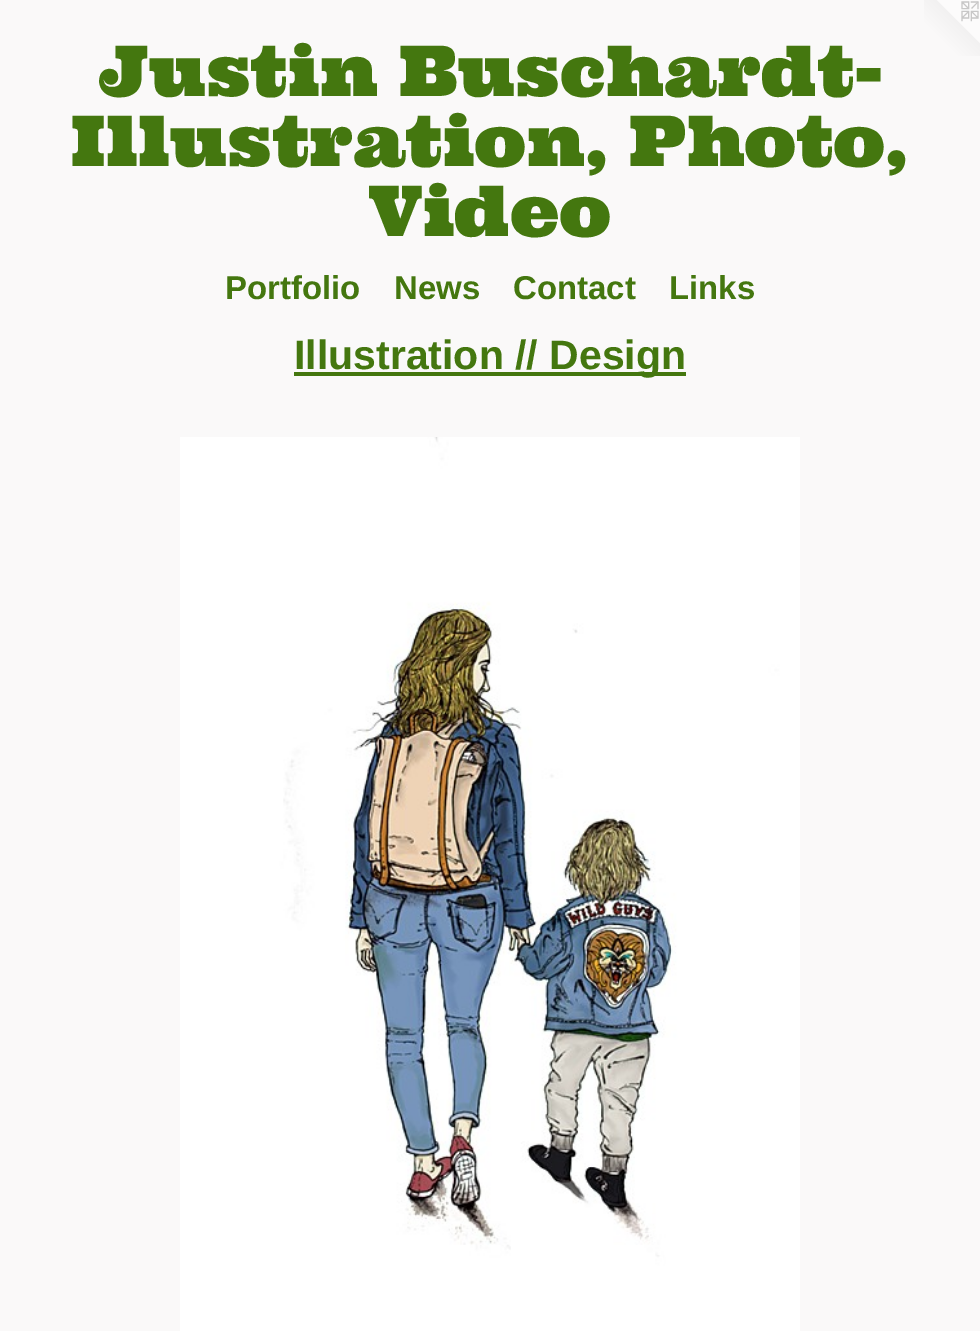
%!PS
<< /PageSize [980 1331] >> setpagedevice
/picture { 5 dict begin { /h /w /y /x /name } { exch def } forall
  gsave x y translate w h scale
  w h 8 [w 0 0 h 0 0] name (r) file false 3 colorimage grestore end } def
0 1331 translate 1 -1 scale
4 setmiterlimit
0.98 0.976 0.976 setrgbcolor
0 0 980 1331 rectfill
(img1.rgb) 924 0 56 56 picture
/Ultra-Regular [70 0 0 -70 0 0] selectfont
0.267 0.467 0.059 setrgbcolor
97 96 moveto (Justin Buschardt-) show
71 166 moveto (Illustration, Photo,) show
369 236 moveto (Video) show
/LiberationSans-Bold [33 0 0 -33 0 0] selectfont
225 299 moveto (Portfolio) show
394 299 moveto (News) show
513 299 moveto (Contact) show
669 299 moveto (Links) show
294 372 392 4 rectfill
/LiberationSans-Bold [41 0 0 -41 0 0] selectfont
294 369 moveto (Illustration // Design) show
(img2.rgb) 180 437 620 894 picture
showpage
